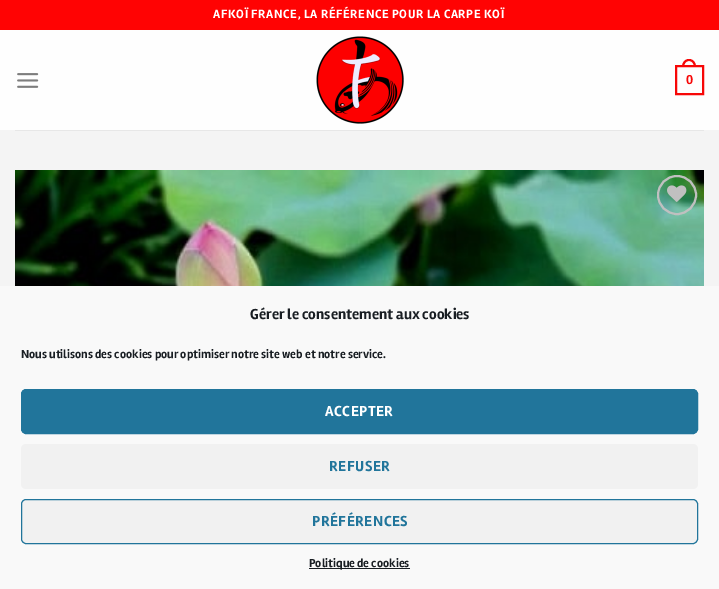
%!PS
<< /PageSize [719 589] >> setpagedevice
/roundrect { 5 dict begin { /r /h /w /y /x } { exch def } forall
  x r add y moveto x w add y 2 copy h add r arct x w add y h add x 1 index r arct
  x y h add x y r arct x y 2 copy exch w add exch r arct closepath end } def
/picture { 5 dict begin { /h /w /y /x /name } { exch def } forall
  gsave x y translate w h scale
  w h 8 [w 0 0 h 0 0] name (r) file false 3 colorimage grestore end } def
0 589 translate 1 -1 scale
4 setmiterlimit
0.957 setgray
0 0 719 589 rectfill
1 0.012 0.012 setrgbcolor
0 0 719 30 rectfill
/Rambla-Bold [12.5 0 0 -12.5 0 0] selectfont
1 setgray
213 18 moveto 0.6 0 (AFKOÏ FRANCE, LA RÉFÉRENCE POUR LA CARPE KOÏ) ashow
0.996 setgray
0 30 719 100 rectfill
(img1.rgb) 17 73 22 15 picture
(img2.rgb) 316 36 88 88 picture
0.969 0.027 0.027 setrgbcolor
2 setlinewidth
676 66 27 28 rectstroke
newpath 689 59 moveto 693.5 59 696 63 696 67 curveto 682 67 lineto 682 63 684.5 59 689 59 curveto closepath 689 61 moveto 692.5 61 694 64 694 67 curveto 684 67 lineto 684 64 685.5 61 689 61 curveto closepath eofill
/LiberationSans-Bold [13 0 0 -13 0 0] selectfont
686 84 moveto (0) show
0.906 setgray
15 130 689 1 rectfill
(img3.rgb) 15 170 689 116 picture
0.753 setgray
newpath 677 195 19 0 360 arc closepath stroke
(img4.rgb) 667 185 20 17 picture
0.976 setgray
0 286 719 303 rectfill
/Rambla-Bold [15 0 0 -15 0 0] selectfont
0.098 0.118 0.137 setrgbcolor
250 319 moveto (Gérer le consentement aux cookies) show
/Rambla-Bold [12 0 0 -12 0 0] selectfont
21 358 moveto (Nous utilisons des cookies pour optimiser notre site web et notre service.) show
0.129 0.459 0.608 setrgbcolor
21.5 389.5 676 44 4.5 roundrect gsave fill grestore
1 setlinewidth
stroke
/Rambla-Bold [15 0 0 -15 0 0] selectfont
1 setgray
325 416 moveto 0.5 0 (ACCEPTER) ashow
0.945 setgray
21 444 677 45 5 roundrect fill
0.129 0.459 0.608 setrgbcolor
329 471 moveto 0.5 0 (REFUSER) ashow
0.945 setgray
21.5 499.5 676 44 4.5 roundrect gsave fill grestore
0.129 0.459 0.608 setrgbcolor
stroke
312 526 moveto 0.5 0 (PRÉFÉRENCES) ashow
0.098 0.118 0.137 setrgbcolor
309 568 101 1 rectfill
/Rambla-Bold [12 0 0 -12 0 0] selectfont
309 567 moveto (Politique de cookies) show
showpage
